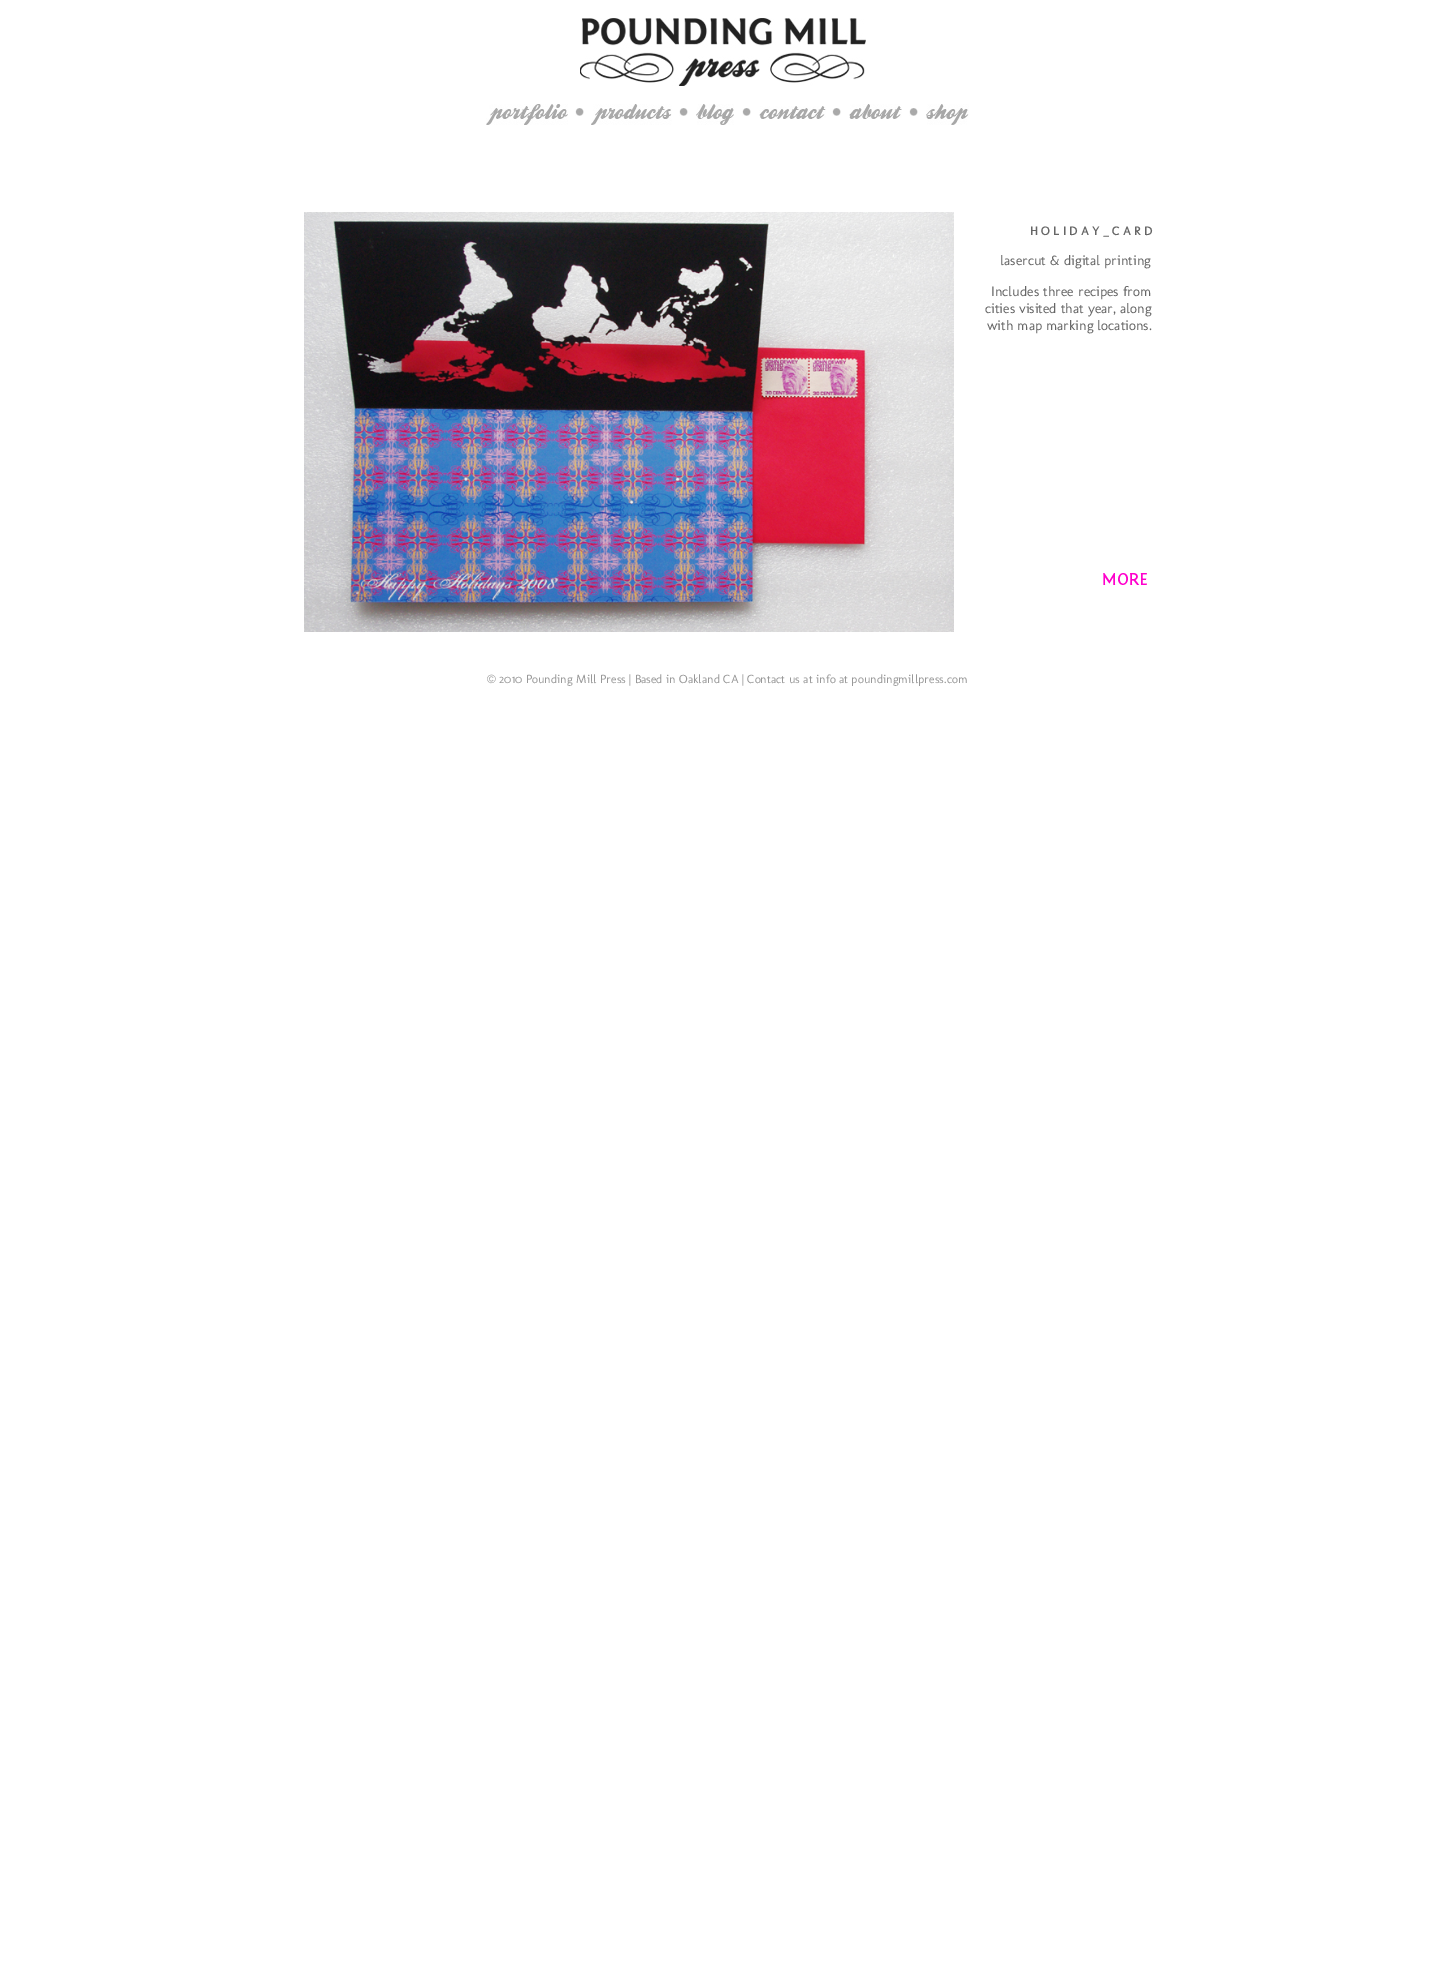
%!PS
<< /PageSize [1455 1970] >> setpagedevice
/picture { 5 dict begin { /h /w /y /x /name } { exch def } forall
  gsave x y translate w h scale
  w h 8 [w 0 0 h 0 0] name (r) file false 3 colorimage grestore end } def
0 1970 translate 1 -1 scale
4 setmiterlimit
1 setgray
0 0 1455 1970 rectfill
(img1.rgb) 580 18 286 68 picture
(img2.rgb) 486 104 82 21 picture
(img3.rgb) 575 108 9 8 picture
(img4.rgb) 591 104 81 21 picture
(img3.rgb) 679 108 9 8 picture
(img5.rgb) 696 104 38 21 picture
(img3.rgb) 742 108 9 8 picture
(img6.rgb) 759 106 67 13 picture
(img3.rgb) 832 108 9 8 picture
(img7.rgb) 849 104 53 15 picture
(img3.rgb) 909 108 9 8 picture
(img8.rgb) 926 104 43 21 picture
(img9.rgb) 304 212 650 420 picture
/Molengo-Bold [12 0 0 -12 0 0] selectfont
0.4 setgray
1030 235 moveto (H O L I D A Y _ C A R D) show
/Molengo-Regular [14 0 0 -14 0 0] selectfont
1000 265 moveto (lasercut & digital printing) show
991 296 moveto (Includes three recipes from) show
985 313 moveto (cities visited that year, along) show
987 330 moveto (with map marking locations.) show
(img10.rgb) 1103 573 44 14 picture
/LiberationSans-Regular [12 0 0 -12 0 0] selectfont
0.6 setgray
487 683 moveto (©) show
/Molengo-Regular [12 0 0 -12 0 0] selectfont
499 683 moveto (2010 Pounding Mill Press | Based in Oakland CA | Contact us at info at poundingmillpress.com) show
showpage
